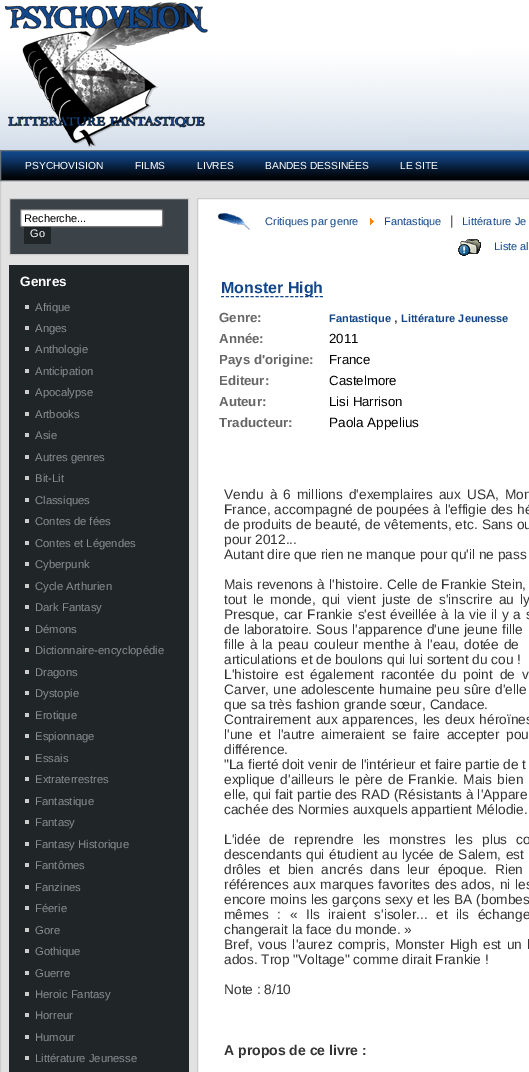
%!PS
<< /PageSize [529 1072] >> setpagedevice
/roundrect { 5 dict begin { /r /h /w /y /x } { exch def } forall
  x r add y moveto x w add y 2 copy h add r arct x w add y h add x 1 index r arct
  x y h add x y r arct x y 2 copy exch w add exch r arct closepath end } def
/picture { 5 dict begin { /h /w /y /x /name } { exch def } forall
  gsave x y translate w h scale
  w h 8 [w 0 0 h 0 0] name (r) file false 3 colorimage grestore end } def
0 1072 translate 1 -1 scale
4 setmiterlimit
1 setgray
0 0 529 1072 rectfill
(img1.rgb) 0 0 529 150 picture
(img2.rgb) 5 2 203 146 picture
0.886 setgray
1 181 528 891 rectfill
0.8 setgray
0.5 150.5 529 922 rectstroke
(img3.rgb) 1 151 528 29 picture
0.416 0.451 0.475 setrgbcolor
0.5 150.5 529 30 rectstroke
/LiberationSans-Regular [10.25 0 0 -10.25 0 0] selectfont
1 setgray
25 169 moveto (PSYCHOVISION) show
135 169 moveto (FILMS) show
197 169 moveto (LIVRES) show
265 169 moveto (BANDES DESSINÉES) show
400 169 moveto (LE SITE) show
0.231 0.263 0.282 setrgbcolor
newpath 9.5 198.5 moveto 188.5 198.5 lineto 188.5 254.5 lineto 9.5 254.5 lineto closepath gsave fill grestore
0.8 setgray
stroke
1 setgray
20.5 209.5 142 17 1.5 roundrect gsave fill grestore
0.463 setgray
stroke
/LiberationSans-Regular [11 0 0 -11 0 0] selectfont
0 setgray
24 222 moveto (Recherche...) show
0.125 0.145 0.157 setrgbcolor
24 227 27 17 rectfill
1 setgray
30 237 moveto (Go) show
0.125 0.145 0.157 setrgbcolor
9 265 180 807 rectfill
/LiberationSans-Bold [13.5 0 0 -13.5 0 0] selectfont
1 setgray
20 286 moveto (Genres) show
0.8 setgray
25 305 4 4 rectfill
/LiberationSans-Regular [11.25 0 0 -11.25 0 0] selectfont
0.537 0.561 0.576 setrgbcolor
35 311 moveto (Afrique) show
0.8 setgray
25 326 4 4 rectfill
0.537 0.561 0.576 setrgbcolor
35 332 moveto (Anges) show
0.8 setgray
25 347 4 4 rectfill
0.537 0.561 0.576 setrgbcolor
35 353 moveto (Anthologie) show
0.8 setgray
25 369 4 4 rectfill
0.537 0.561 0.576 setrgbcolor
35 375 moveto (Anticipation) show
0.8 setgray
25 390 4 4 rectfill
0.537 0.561 0.576 setrgbcolor
35 396 moveto (Apocalypse) show
0.8 setgray
25 412 4 4 rectfill
0.537 0.561 0.576 setrgbcolor
35 418 moveto (Artbooks) show
0.8 setgray
25 433 4 4 rectfill
0.537 0.561 0.576 setrgbcolor
35 439 moveto (Asie) show
0.8 setgray
25 455 4 4 rectfill
0.537 0.561 0.576 setrgbcolor
35 461 moveto (Autres genres) show
0.8 setgray
25 476 4 4 rectfill
0.537 0.561 0.576 setrgbcolor
35 482 moveto (Bit-Lit) show
0.8 setgray
25 498 4 4 rectfill
0.537 0.561 0.576 setrgbcolor
35 504 moveto (Classiques) show
0.8 setgray
25 519 4 4 rectfill
0.537 0.561 0.576 setrgbcolor
35 525 moveto (Contes de fées) show
0.8 setgray
25 541 4 4 rectfill
0.537 0.561 0.576 setrgbcolor
35 547 moveto (Contes et Légendes) show
0.8 setgray
25 562 4 4 rectfill
0.537 0.561 0.576 setrgbcolor
35 568 moveto (Cyberpunk) show
0.8 setgray
25 584 4 4 rectfill
0.537 0.561 0.576 setrgbcolor
35 590 moveto (Cycle Arthurien) show
0.8 setgray
25 605 4 4 rectfill
0.537 0.561 0.576 setrgbcolor
35 611 moveto (Dark Fantasy) show
0.8 setgray
25 627 4 4 rectfill
0.537 0.561 0.576 setrgbcolor
35 633 moveto (Démons) show
0.8 setgray
25 648 4 4 rectfill
0.537 0.561 0.576 setrgbcolor
35 654 moveto (Dictionnaire-encyclopédie) show
0.8 setgray
25 670 4 4 rectfill
0.537 0.561 0.576 setrgbcolor
35 676 moveto (Dragons) show
0.8 setgray
25 691 4 4 rectfill
0.537 0.561 0.576 setrgbcolor
35 697 moveto (Dystopie) show
0.8 setgray
25 713 4 4 rectfill
0.537 0.561 0.576 setrgbcolor
35 719 moveto (Erotique) show
0.8 setgray
25 734 4 4 rectfill
0.537 0.561 0.576 setrgbcolor
35 740 moveto (Espionnage) show
0.8 setgray
25 756 4 4 rectfill
0.537 0.561 0.576 setrgbcolor
35 762 moveto (Essais) show
0.8 setgray
25 777 4 4 rectfill
0.537 0.561 0.576 setrgbcolor
35 783 moveto (Extraterrestres) show
0.8 setgray
25 799 4 4 rectfill
0.537 0.561 0.576 setrgbcolor
35 805 moveto (Fantastique) show
0.8 setgray
25 820 4 4 rectfill
0.537 0.561 0.576 setrgbcolor
35 826 moveto (Fantasy) show
0.8 setgray
25 842 4 4 rectfill
0.537 0.561 0.576 setrgbcolor
35 848 moveto (Fantasy Historique) show
0.8 setgray
25 863 4 4 rectfill
0.537 0.561 0.576 setrgbcolor
35 869 moveto (Fantômes) show
0.8 setgray
25 885 4 4 rectfill
0.537 0.561 0.576 setrgbcolor
35 891 moveto (Fanzines) show
0.8 setgray
25 906 4 4 rectfill
0.537 0.561 0.576 setrgbcolor
35 912 moveto (Féerie) show
0.8 setgray
25 928 4 4 rectfill
0.537 0.561 0.576 setrgbcolor
35 934 moveto (Gore) show
0.8 setgray
25 949 4 4 rectfill
0.537 0.561 0.576 setrgbcolor
35 955 moveto (Gothique) show
0.8 setgray
25 971 4 4 rectfill
0.537 0.561 0.576 setrgbcolor
35 977 moveto (Guerre) show
0.8 setgray
25 992 4 4 rectfill
0.537 0.561 0.576 setrgbcolor
35 998 moveto (Heroic Fantasy) show
0.8 setgray
25 1013 4 4 rectfill
0.537 0.561 0.576 setrgbcolor
35 1019 moveto (Horreur) show
0.8 setgray
25 1035 4 4 rectfill
0.537 0.561 0.576 setrgbcolor
35 1041 moveto (Humour) show
0.8 setgray
25 1056 4 4 rectfill
0.537 0.561 0.576 setrgbcolor
35 1062 moveto (Littérature Jeunesse) show
1 setgray
newpath 197.5 198.5 moveto 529.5 198.5 lineto 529.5 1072.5 lineto 197.5 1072.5 lineto closepath gsave fill grestore
0.8 setgray
stroke
(img4.rgb) 218 213 32 17 picture
/LiberationSans-Regular [11 0 0 -11 0 0] selectfont
0.067 0.278 0.541 setrgbcolor
265 225 moveto (Critiques par genre) show
(img5.rgb) 370 218 4 7 picture
384 225 moveto (Fantastique) show
/LiberationSans-Regular [13 0 0 -13 0 0] selectfont
0.2 setgray
450 225 moveto (|) show
/LiberationSans-Regular [11 0 0 -11 0 0] selectfont
0.067 0.278 0.541 setrgbcolor
462 225 moveto (Littérature Je) show
(img6.rgb) 458 239 23 17 picture
494 250 moveto (Liste al) show
[3 1.95] 0 setdash
newpath 221 296.5 moveto 323 296.5 lineto stroke
/LiberationSans-Bold [16 0 0 -16 0 0] selectfont
221 293 moveto (Monster High) show
/LiberationSans-Bold [13.25 0 0 -13.25 0 0] selectfont
0.4 setgray
219 322 moveto (Genre:) show
/LiberationSans-Bold [11 0 0 -11 0 0] selectfont
0.067 0.278 0.541 setrgbcolor
329 322 moveto (Fantastique) show
/LiberationSans-Regular [13.25 0 0 -13.25 0 0] selectfont
0 setgray
394 322 moveto (,) show
/LiberationSans-Bold [11 0 0 -11 0 0] selectfont
0.067 0.278 0.541 setrgbcolor
401 322 moveto (Littérature Jeunesse) show
/LiberationSans-Bold [13.25 0 0 -13.25 0 0] selectfont
0.4 setgray
219 343 moveto (Année:) show
/LiberationSans-Regular [13.25 0 0 -13.25 0 0] selectfont
0 setgray
329 343 moveto (2011) show
/LiberationSans-Bold [13.25 0 0 -13.25 0 0] selectfont
0.4 setgray
219 364 moveto (Pays d'origine:) show
/LiberationSans-Regular [13.25 0 0 -13.25 0 0] selectfont
0 setgray
329 364 moveto (France) show
/LiberationSans-Bold [13.25 0 0 -13.25 0 0] selectfont
0.4 setgray
219 385 moveto (Editeur:) show
/LiberationSans-Regular [13.25 0 0 -13.25 0 0] selectfont
0 setgray
329 385 moveto (Castelmore) show
/LiberationSans-Bold [13.25 0 0 -13.25 0 0] selectfont
0.4 setgray
219 406 moveto (Auteur:) show
/LiberationSans-Regular [13.25 0 0 -13.25 0 0] selectfont
0 setgray
329 406 moveto (Lisi Harrison) show
/LiberationSans-Bold [13.25 0 0 -13.25 0 0] selectfont
0.4 setgray
219 427 moveto (Traducteur:) show
/LiberationSans-Regular [13.5 0 0 -13.5 0 0] selectfont
0 setgray
329 427 moveto (Paola Appelius) show
/LiberationSans-Regular [13.7 0 0 -13.7 0 0] selectfont
0.2 setgray
224 499 moveto 2.25 0 32 (Vendu à 6 millions d'exemplaires aux USA, Mon) widthshow
224 514 moveto 0.25 0 32 (France, accompagné de poupées à l'effigie des hé) widthshow
224 529 moveto 0.25 0 32 (de produits de beauté, de vêtements, etc. Sans ou) widthshow
224 544 moveto (pour 2012...) show
224 559 moveto (Autant dire que rien ne manque pour qu'il ne pass) show
224 589 moveto 0.25 0 32 (Mais revenons à l'histoire. Celle de Frankie Stein,) widthshow
224 604 moveto 2.5 0 32 (tout le monde, qui vient juste de s'inscrire au ly) widthshow
224 619 moveto 0.9 0 32 (Presque, car Frankie s'est éveillée à la vie il y a s) widthshow
224 634 moveto 0.5 0 32 (de laboratoire. Sous l'apparence d'une jeune fille) widthshow
224 649 moveto 1.25 0 32 (fille à la peau couleur menthe à l'eau, dotée de) widthshow
224 664 moveto (articulations et de boulons qui lui sortent du cou !) show
224 679 moveto 3 0 32 (L'histoire est également racontée du point de v) widthshow
224 694 moveto 0.75 0 32 (Carver, une adolescente humaine peu sûre d'elle) widthshow
224 709 moveto (que sa très fashion grande sœur, Candace.) show
224 724 moveto 1 0 32 (Contrairement aux apparences, les deux héroïnes) widthshow
224 739 moveto 3 0 32 (l'une et l'autre aimeraient se faire accepter pou) widthshow
224 754 moveto (différence.) show
224 769 moveto ("La fierté doit venir de l'intérieur et faire partie de t) show
224 784 moveto 1.5 0 32 (explique d'ailleurs le père de Frankie. Mais bien) widthshow
224 799 moveto (elle, qui fait partie des RAD \(Résistants à l'Appare) show
224 814 moveto (cachée des Normies auxquels appartient Mélodie.) show
224 844 moveto 5.5 0 32 (L'idée de reprendre les monstres les plus co) widthshow
224 859 moveto 0.75 0 32 (descendants qui étudient au lycée de Salem, est) widthshow
224 874 moveto 3.75 0 32 (drôles et bien ancrés dans leur époque. Rien) widthshow
224 889 moveto 0.9 0 32 (références aux marques favorites des ados, ni les) widthshow
224 904 moveto 0.25 0 32 (encore moins les garçons sexy et les BA \(bombes) widthshow
224 919 moveto 4.75 0 32 (mêmes : « Ils iraient s'isoler... et ils échange) widthshow
224 934 moveto (changerait la face du monde. ») show
224 949 moveto 1.5 0 32 (Bref, vous l'aurez compris, Monster High est un l) widthshow
224 964 moveto (ados. Trop "Voltage" comme dirait Frankie !) show
224 994 moveto (Note : 8/10) show
/LiberationSans-Bold [14 0 0 -14 0 0] selectfont
224 1055 moveto (A propos de ce livre :) show
showpage
